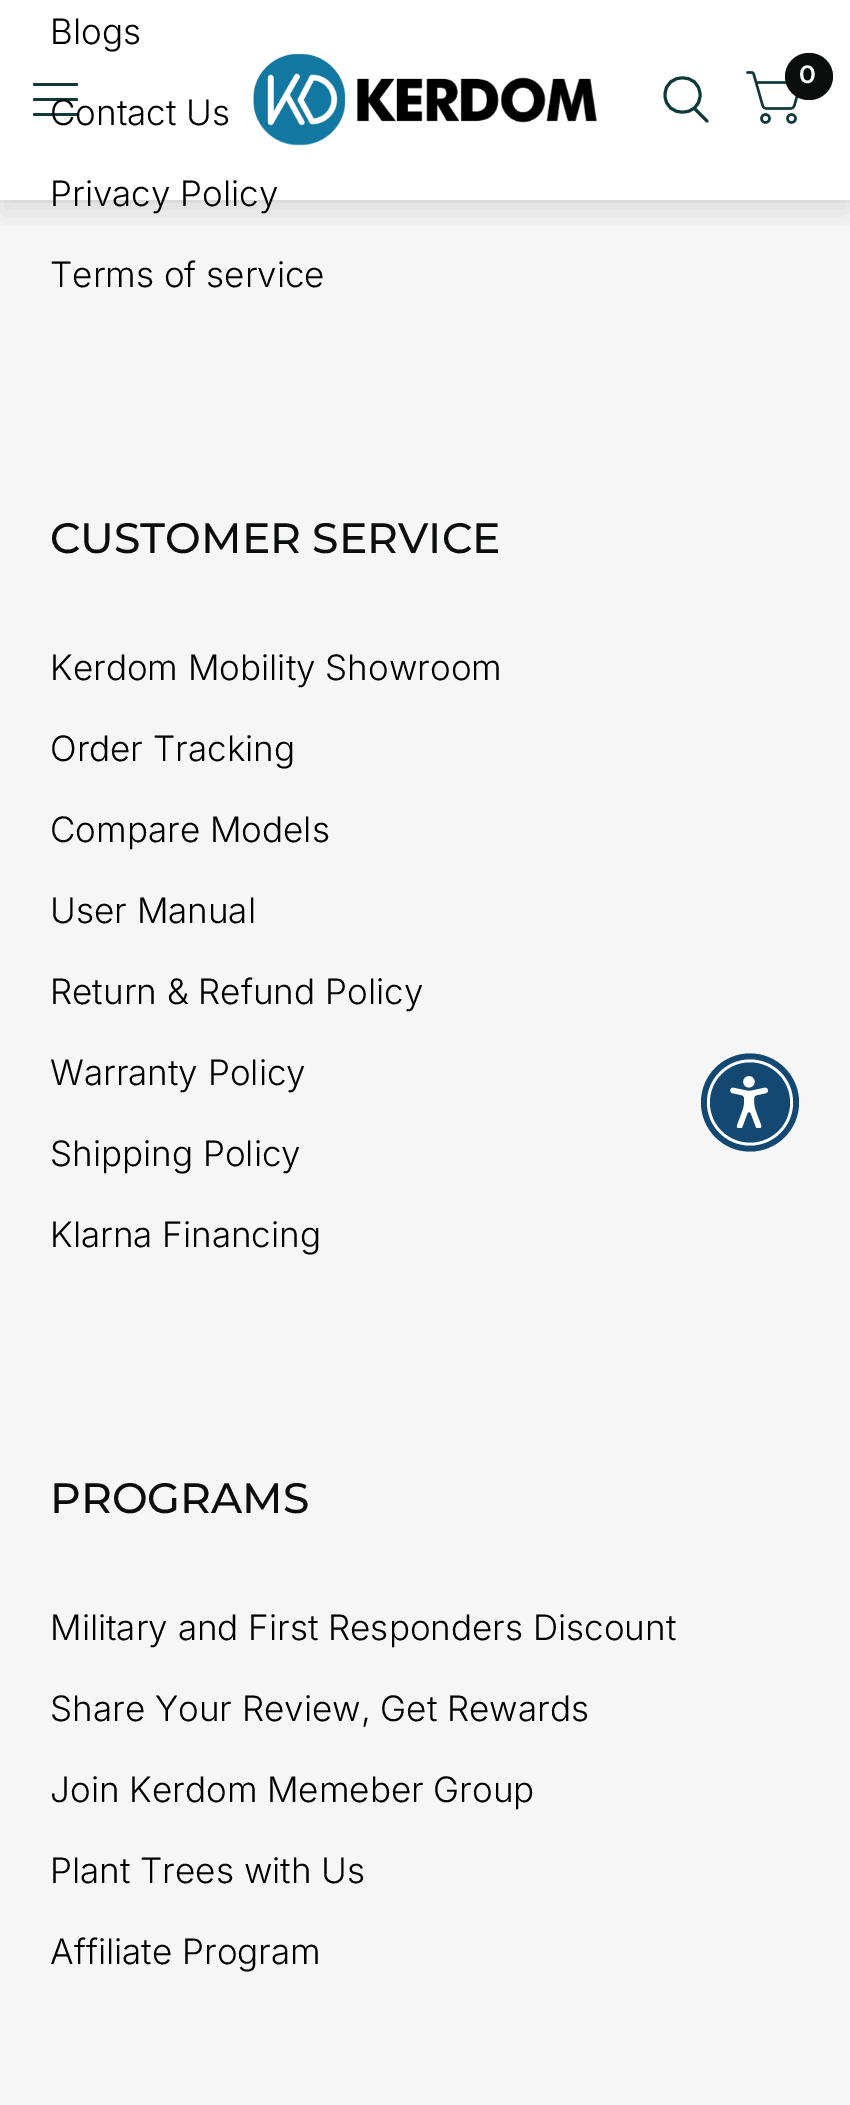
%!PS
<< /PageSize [850 2105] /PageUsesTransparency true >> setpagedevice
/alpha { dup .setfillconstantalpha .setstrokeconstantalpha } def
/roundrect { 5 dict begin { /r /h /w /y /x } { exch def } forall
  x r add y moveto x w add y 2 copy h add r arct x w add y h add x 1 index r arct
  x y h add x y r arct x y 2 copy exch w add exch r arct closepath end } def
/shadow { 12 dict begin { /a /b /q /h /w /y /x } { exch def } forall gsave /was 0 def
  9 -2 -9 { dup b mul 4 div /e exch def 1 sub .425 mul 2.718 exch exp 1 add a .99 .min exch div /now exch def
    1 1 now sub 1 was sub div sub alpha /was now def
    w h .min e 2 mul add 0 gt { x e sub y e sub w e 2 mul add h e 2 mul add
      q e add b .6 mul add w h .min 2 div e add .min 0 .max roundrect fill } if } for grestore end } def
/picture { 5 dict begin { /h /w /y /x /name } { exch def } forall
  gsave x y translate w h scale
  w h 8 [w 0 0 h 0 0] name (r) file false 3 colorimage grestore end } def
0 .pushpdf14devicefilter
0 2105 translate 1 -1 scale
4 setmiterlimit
0.965 setgray
0 0 850 2105 rectfill
1 setgray
0 0 850 200 rectfill
0.933 setgray
0 200 850 3 rectfill
gsave
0 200 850 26 rectclip
0 setgray
0 13 850 200 0 15 0.1 shadow
grestore
/Inter-Light [35 0 0 -35 0 0] selectfont
0 setgray
50 44 moveto (Blogs) show
0.063 0.227 0.227 setrgbcolor
33 98 45 3 1.5 roundrect fill
33 113 45 3 1.5 roundrect fill
0 setgray
50 125 moveto (Contact Us) show
50 206 moveto (Privacy Policy) show
50 287 moveto (Terms of service) show
/Montserrat-Medium [42.5 0 0 -42.5 0 0] selectfont
0.047 0.051 0.051 setrgbcolor
50 553 moveto (CUSTOMER SERVICE) show
/Inter-Light [35 0 0 -35 0 0] selectfont
0 setgray
50 680 moveto (Kerdom Mobility Showroom) show
50 761 moveto (Order Tracking) show
50 842 moveto (Compare Models) show
50 923 moveto (User Manual) show
50 1004 moveto (Return & Refund Policy) show
50 1085 moveto (Warranty Policy) show
50 1166 moveto (Shipping Policy) show
50 1247 moveto (Klarna Financing) show
/Montserrat-Medium [42.5 0 0 -42.5 0 0] selectfont
0.047 0.051 0.051 setrgbcolor
50 1513 moveto (PROGRAMS) show
/Inter-Light [35 0 0 -35 0 0] selectfont
0 setgray
50 1640 moveto (Military and First Responders Discount) show
50 1721 moveto (Share Your Review, Get Rewards) show
50 1802 moveto (Join Kerdom Memeber Group) show
50 1883 moveto (Plant Trees with Us) show
50 1964 moveto (Affiliate Program) show
(img1.rgb) 253 54 344 92 picture
0.063 0.227 0.227 setrgbcolor
3 setlinewidth
1 setlinecap
1 setlinejoin
newpath 695 109 moveto 707 121 lineto 700 95 moveto 700 118 665 118 665 95 curveto 665 72 700 72 700 95 curveto closepath stroke
(img2.rgb) 746 71 53 53 picture
0.047 0.051 0.051 setrgbcolor
785 53 48 47 23.5 roundrect fill
/Montserrat-SemiBold [25 0 0 -25 0 0] selectfont
1 setgray
799 83 moveto (0) show
0.063 0.227 0.227 setrgbcolor
33 83 45 3 1.5 roundrect fill
0.071 0.282 0.447 setrgbcolor
newpath 750 1102.5 49 0 360 arc closepath fill
1 setgray
newpath 750 1102.5 43 0 360 arc closepath fill
0.071 0.282 0.447 setrgbcolor
newpath 750 1102.5 40 0 360 arc closepath fill
(img3.rgb) 730 1076 38 52 picture
.poppdf14devicefilter showpage
